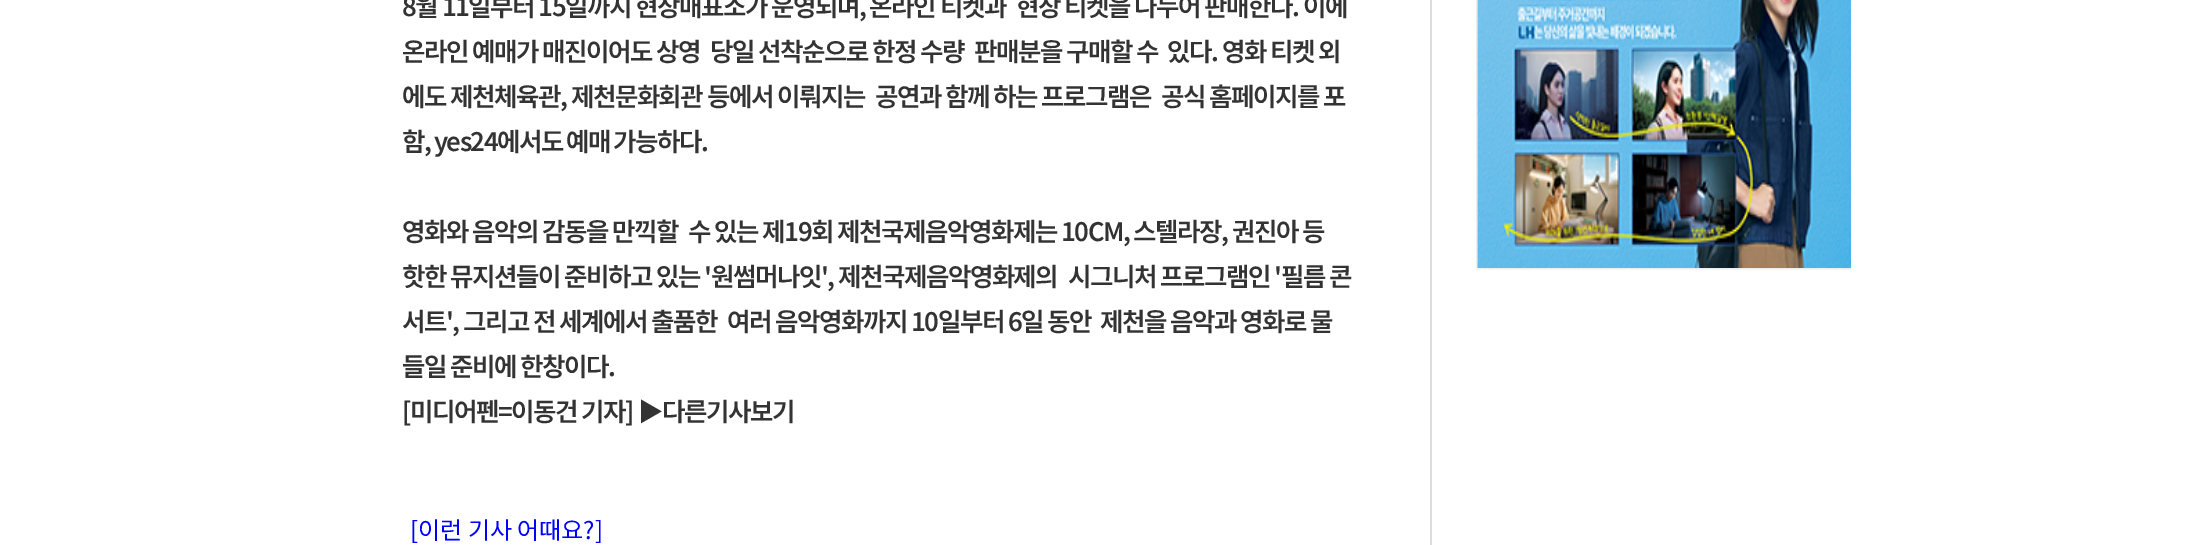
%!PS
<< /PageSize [2198 545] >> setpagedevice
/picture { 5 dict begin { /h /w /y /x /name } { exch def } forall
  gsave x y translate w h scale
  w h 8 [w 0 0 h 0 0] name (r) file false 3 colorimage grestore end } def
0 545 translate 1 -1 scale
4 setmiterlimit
1 setgray
0 0 2198 545 rectfill
/NotoSansKR-SemiBold [25.5 0 0 -25.5 0 0] selectfont
0.2 setgray
402 16 moveto -1.5 0 (8월 11일부터 15일까지 현장매표소가 운영되며, 온라인 티켓과) ashow
1016 16 moveto -1.5 0 (현장 티켓을 나누어 판매한다. 이에) ashow
402 61 moveto -1.5 0 (온라인 예매가 매진이어도 상영) ashow
710 61 moveto -1.5 0 (당일 선착순으로 한정 수량) ashow
974 61 moveto -1.5 0 (판매분을 구매할 수) ashow
1167 61 moveto -1.5 0 (있다. 영화 티켓 외) ashow
402 106 moveto -1.5 0 (에도 제천체육관, 제천문화회관 등에서 이뤄지는) ashow
875 106 moveto -1.5 0 (공연과 함께 하는 프로그램은) ashow
1161 106 moveto -1.5 0 (공식 홈페이지를 포) ashow
402 151 moveto -1 0 32 -1.5 0 (함, yes24에서도 예매 가능하다.) awidthshow
402 241 moveto -1.5 0 (영화와 음악의 감동을 만끽할) ashow
688 241 moveto -1.5 0 (수 있는 제19회 제천국제음악영화제는 10CM, 스텔라장, 권진아 등) ashow
402 286 moveto -1.5 0 (핫한 뮤지션들이 준비하고 있는 '원썸머나잇', 제천국제음악영화제의) ashow
1068 286 moveto -1.5 0 (시그니처 프로그램인 '필름 콘) ashow
402 331 moveto -1.5 0 (서트', 그리고 전 세계에서 출품한) ashow
727 331 moveto -1.5 0 (여러 음악영화까지 10일부터 6일 동안) ashow
1100 331 moveto -1.5 0 (제천을 음악과 영화로 물) ashow
402 376 moveto -1.5 0 (들일 준비에 한창이다.) ashow
402 421 moveto -1.5 0 ([미디어펜=이동건 기자]) ashow
638 421 moveto -1.5 0 (▶다른기사보기) ashow
/NotoSansKR-Regular [24 0 0 -24 0 0] selectfont
0 0 1 setrgbcolor
410 539 moveto ([이런 기사 어때요?]) show
0.867 setgray
1430 0 2 545 rectfill
(img1.rgb) 1476 0 375 270 picture
showpage
